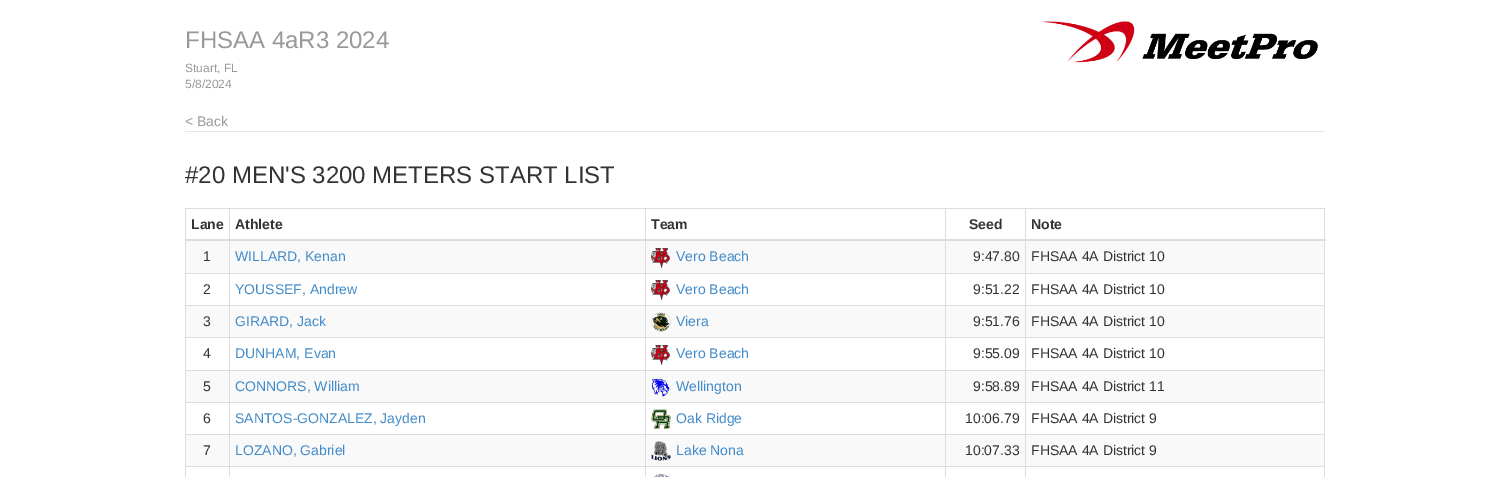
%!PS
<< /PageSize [1510 477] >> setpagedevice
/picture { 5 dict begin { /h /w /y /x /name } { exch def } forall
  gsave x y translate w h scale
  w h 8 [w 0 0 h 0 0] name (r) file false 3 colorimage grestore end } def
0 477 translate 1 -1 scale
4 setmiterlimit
1 setgray
0 0 1510 477 rectfill
0.898 setgray
185 131 1140 1 rectfill
/LiberationSans-Regular [24 0 0 -24 0 0] selectfont
0.6 setgray
185 48 moveto (FHSAA 4aR3 2024) show
/LiberationSans-Regular [12 0 0 -12 0 0] selectfont
185 72 moveto (Stuart, FL) show
185 88 moveto (5/8/2024) show
(img1.rgb) 1040 21 278 42 picture
/LiberationSans-Regular [14 0 0 -14 0 0] selectfont
185 126 moveto (< Back) show
/LiberationSans-Regular [24 0 0 -24 0 0] selectfont
0.2 setgray
185 183 moveto (#20 MEN'S 3200 METERS START LIST) show
0.867 setgray
185 208 1140 1 rectfill
1324 208 1 269 rectfill
185 208 1 269 rectfill
/LiberationSans-Bold [14 0 0 -14 0 0] selectfont
0.2 setgray
191 229 moveto (Lane) show
235 229 moveto (Athlete) show
651 229 moveto (Team) show
969 229 moveto (Seed) show
0.867 setgray
1025 273 300 1 rectfill
1025 305 300 1 rectfill
1025 337 300 1 rectfill
1025 370 300 1 rectfill
1025 402 300 1 rectfill
1025 434 300 1 rectfill
1025 466 300 1 rectfill
1025 466 1 11 rectfill
945 466 81 1 rectfill
1025 434 1 33 rectfill
945 434 81 1 rectfill
1025 402 1 33 rectfill
945 402 81 1 rectfill
1025 370 1 33 rectfill
945 370 81 1 rectfill
1025 337 1 34 rectfill
945 337 81 1 rectfill
1025 305 1 33 rectfill
945 305 81 1 rectfill
1025 273 1 33 rectfill
945 273 81 1 rectfill
945 466 1 11 rectfill
645 466 301 1 rectfill
945 434 1 33 rectfill
645 434 301 1 rectfill
945 402 1 33 rectfill
645 402 301 1 rectfill
945 370 1 33 rectfill
645 370 301 1 rectfill
945 337 1 34 rectfill
645 337 301 1 rectfill
945 305 1 33 rectfill
645 305 301 1 rectfill
945 273 1 33 rectfill
645 273 301 1 rectfill
645 466 1 11 rectfill
229 466 417 1 rectfill
645 434 1 33 rectfill
229 434 417 1 rectfill
645 402 1 33 rectfill
229 402 417 1 rectfill
645 370 1 33 rectfill
229 370 417 1 rectfill
645 337 1 34 rectfill
229 337 417 1 rectfill
645 305 1 33 rectfill
229 305 417 1 rectfill
645 273 1 33 rectfill
229 273 417 1 rectfill
229 466 1 11 rectfill
185 466 45 1 rectfill
229 434 1 33 rectfill
185 434 45 1 rectfill
229 402 1 33 rectfill
185 402 45 1 rectfill
229 370 1 33 rectfill
185 370 45 1 rectfill
229 337 1 34 rectfill
185 337 45 1 rectfill
229 305 1 33 rectfill
185 305 45 1 rectfill
229 273 1 33 rectfill
185 273 45 1 rectfill
229 208 1 66 rectfill
645 208 1 66 rectfill
945 208 1 66 rectfill
1025 208 1 66 rectfill
185 239 1141 2 rectfill
0.2 setgray
1031 229 moveto (Note) show
0.976 setgray
186 241 43 32 rectfill
/LiberationSans-Regular [14 0 0 -14 0 0] selectfont
0.2 setgray
203 261 moveto (1) show
0.976 setgray
230 241 415 32 rectfill
0.259 0.545 0.792 setrgbcolor
235 261 moveto (WILLARD, Kenan) show
0.976 setgray
646 241 299 32 rectfill
(img2.rgb) 651 248 20 20 picture
0.259 0.545 0.792 setrgbcolor
676 261 moveto (Vero Beach) show
0.976 setgray
946 241 79 32 rectfill
0.2 setgray
973 261 moveto (9:47.80) show
0.976 setgray
1026 241 298 32 rectfill
0.2 setgray
1031 261 moveto (FHSAA 4A District 10) show
203 294 moveto (2) show
0.259 0.545 0.792 setrgbcolor
235 294 moveto (YOUSSEF, Andrew) show
(img3.rgb) 651 280 20 20 picture
676 294 moveto (Vero Beach) show
0.2 setgray
973 294 moveto (9:51.22) show
1031 294 moveto (FHSAA 4A District 10) show
0.976 setgray
186 306 43 31 rectfill
0.2 setgray
203 326 moveto (3) show
0.976 setgray
230 306 415 31 rectfill
0.259 0.545 0.792 setrgbcolor
235 326 moveto (GIRARD, Jack) show
0.976 setgray
646 306 299 31 rectfill
(img4.rgb) 651 312 20 20 picture
0.259 0.545 0.792 setrgbcolor
676 326 moveto (Viera) show
0.976 setgray
946 306 79 31 rectfill
0.2 setgray
973 326 moveto (9:51.76) show
0.976 setgray
1026 306 298 31 rectfill
0.2 setgray
1031 326 moveto (FHSAA 4A District 10) show
203 358 moveto (4) show
0.259 0.545 0.792 setrgbcolor
235 358 moveto (DUNHAM, Evan) show
(img5.rgb) 651 345 20 20 picture
676 358 moveto (Vero Beach) show
0.2 setgray
973 358 moveto (9:55.09) show
1031 358 moveto (FHSAA 4A District 10) show
0.976 setgray
186 371 43 31 rectfill
0.2 setgray
203 391 moveto (5) show
0.976 setgray
230 371 415 31 rectfill
0.259 0.545 0.792 setrgbcolor
235 391 moveto (CONNORS, William) show
0.976 setgray
646 371 299 31 rectfill
(img6.rgb) 651 378 19 19 picture
0.259 0.545 0.792 setrgbcolor
676 391 moveto (Wellington) show
0.976 setgray
946 371 79 31 rectfill
0.2 setgray
973 391 moveto (9:58.89) show
0.976 setgray
1026 371 298 31 rectfill
0.2 setgray
1031 391 moveto (FHSAA 4A District 11) show
203 423 moveto (6) show
0.259 0.545 0.792 setrgbcolor
235 423 moveto (SANTOS-GONZALEZ, Jayden) show
(img7.rgb) 651 409 20 20 picture
676 423 moveto (Oak Ridge) show
0.2 setgray
965 423 moveto (10:06.79) show
1031 423 moveto (FHSAA 4A District 9) show
0.976 setgray
186 435 43 31 rectfill
0.2 setgray
203 455 moveto (7) show
0.976 setgray
230 435 415 31 rectfill
0.259 0.545 0.792 setrgbcolor
235 455 moveto (LOZANO, Gabriel) show
0.976 setgray
646 435 299 31 rectfill
(img8.rgb) 651 441 20 20 picture
0.259 0.545 0.792 setrgbcolor
676 455 moveto (Lake Nona) show
0.976 setgray
946 435 79 31 rectfill
0.2 setgray
965 455 moveto (10:07.33) show
0.976 setgray
1026 435 298 31 rectfill
0.2 setgray
1031 455 moveto (FHSAA 4A District 9) show
(img9.rgb) 654 474 15 3 picture
showpage
